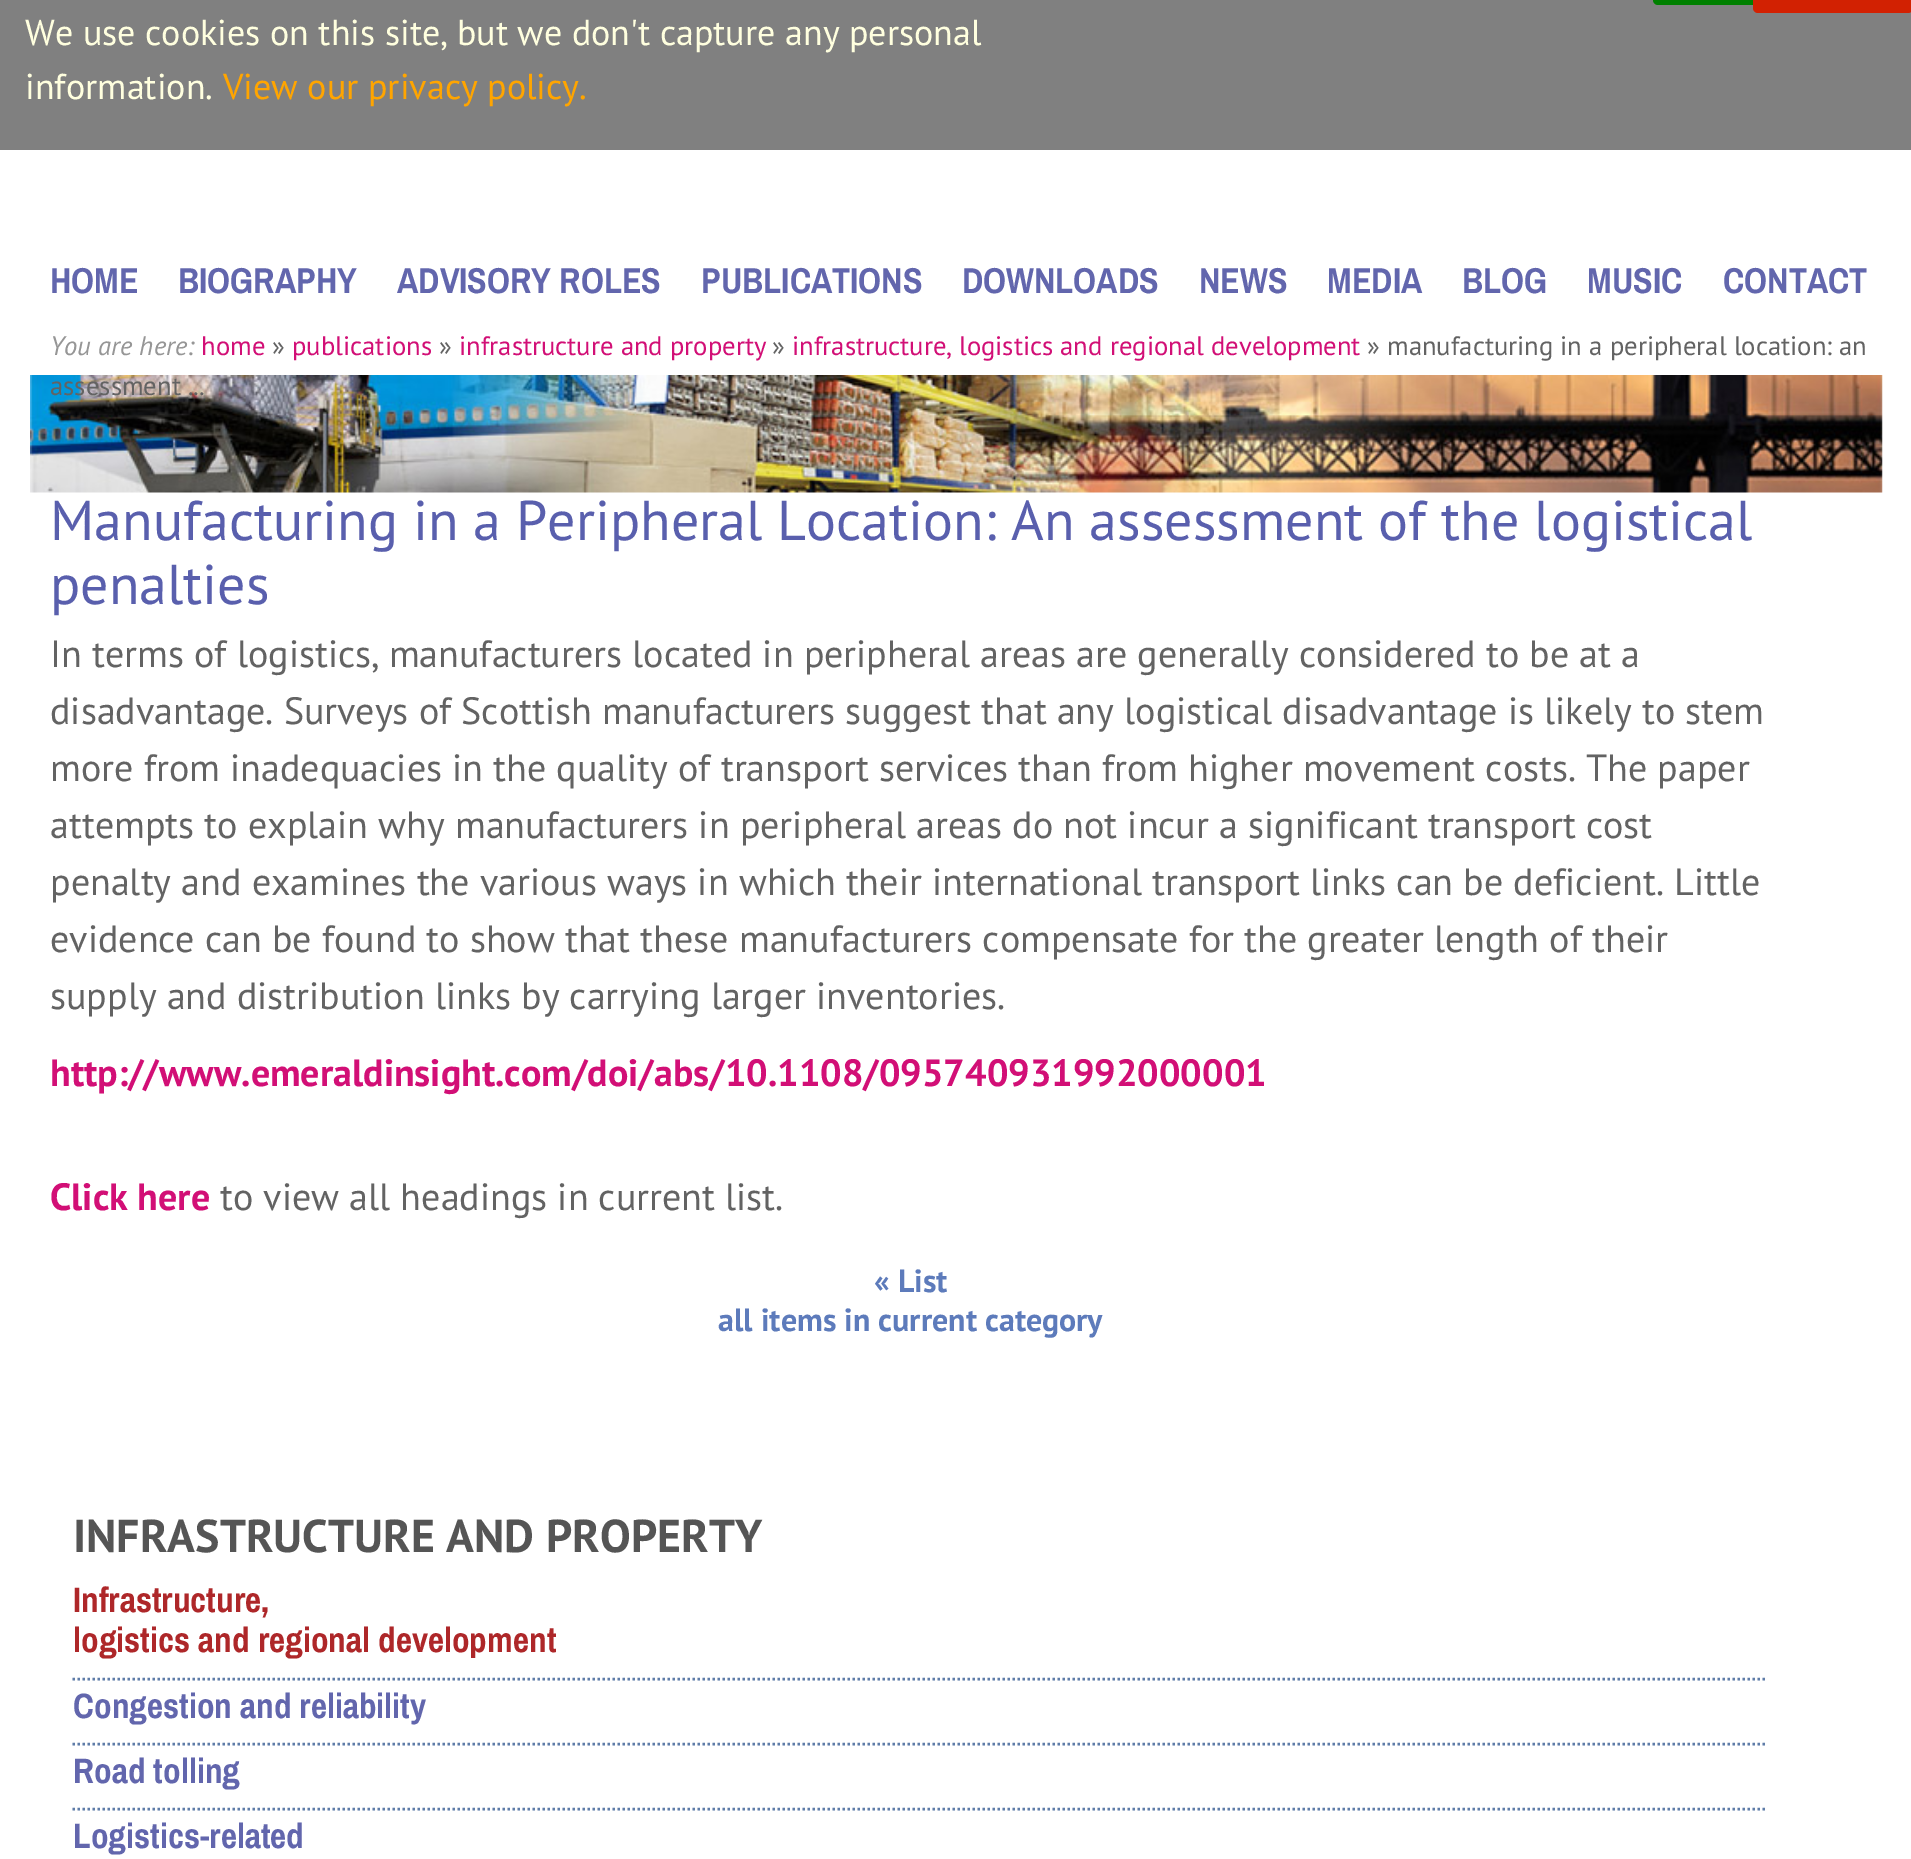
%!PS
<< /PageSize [1911 1859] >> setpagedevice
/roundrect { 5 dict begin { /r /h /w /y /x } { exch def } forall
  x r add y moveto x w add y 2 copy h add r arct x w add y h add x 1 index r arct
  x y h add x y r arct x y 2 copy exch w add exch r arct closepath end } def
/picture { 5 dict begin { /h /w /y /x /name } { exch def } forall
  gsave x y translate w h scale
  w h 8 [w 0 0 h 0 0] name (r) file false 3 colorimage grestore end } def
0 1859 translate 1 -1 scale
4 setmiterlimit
1 setgray
0 0 1911 1859 rectfill
0.502 setgray
0 0 1911 150 rectfill
0 0.502 0 setrgbcolor
1653 -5 235 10 5 roundrect fill
0.824 0.129 0.008 setrgbcolor
1753 -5 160 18 5 roundrect fill
/PTSans-Regular [36 0 0 -36 0 0] selectfont
1 1 0.875 setrgbcolor
25 45 moveto (We use cookies on this site, but we don't capture any personal) show
25 99 moveto (information.) show
1 0.647 0 setrgbcolor
223 99 moveto (View our privacy policy.) show
/PTSans-Italic [26.7 0 0 -26.7 0 0] selectfont
0.588 setgray
50 355 moveto (You are here:) show
/PTSans-Regular [26.7 0 0 -26.7 0 0] selectfont
0.824 0.059 0.463 setrgbcolor
201 355 moveto (home) show
0.388 setgray
272 355 moveto (») show
0.824 0.059 0.463 setrgbcolor
292 355 moveto (publications) show
0.388 setgray
439 355 moveto (») show
0.824 0.059 0.463 setrgbcolor
459 355 moveto (infrastructure and property) show
0.388 setgray
772 355 moveto (») show
0.824 0.059 0.463 setrgbcolor
792 355 moveto (infrastructure, logistics and regional development) show
0.388 setgray
1367 355 moveto (» manufacturing in a peripheral location: an) show
(img1.rgb) 30 375 1853 118 picture
50 395 moveto (assessment ...) show
/ArchivoNarrow-Bold [36 0 0 -36 0 0] selectfont
0.384 0.4 0.678 setrgbcolor
50 293 moveto (HOME) show
178 293 moveto (BIOGRAPHY) show
397 293 moveto (ADVISORY ROLES) show
701 293 moveto (PUBLICATIONS) show
962 293 moveto (DOWNLOADS) show
1199 293 moveto (NEWS) show
1327 293 moveto (MEDIA) show
1462 293 moveto (BLOG) show
1587 293 moveto (MUSIC) show
1723 293 moveto (CONTACT) show
/PTSans-Regular [56 0 0 -56 0 0] selectfont
0.349 0.373 0.678 setrgbcolor
50 540 moveto (Manufacturing in a Peripheral Location: An assessment of the logistical) show
50 604 moveto (penalties) show
/PTSans-Regular [38 0 0 -38 0 0] selectfont
0.388 setgray
50 667 moveto (In terms of logistics, manufacturers located in peripheral areas are generally considered to be at a) show
50 724 moveto (disadvantage. Surveys of Scottish manufacturers suggest that any logistical disadvantage is likely to stem) show
50 781 moveto (more from inadequacies in the quality of transport services than from higher movement costs. The paper) show
50 838 moveto (attempts to explain why manufacturers in peripheral areas do not incur a significant transport cost) show
50 895 moveto (penalty and examines the various ways in which their international transport links can be deficient. Little) show
50 952 moveto (evidence can be found to show that these manufacturers compensate for the greater length of their) show
50 1009 moveto (supply and distribution links by carrying larger inventories.) show
/PTSans-Bold [38 0 0 -38 0 0] selectfont
0.824 0.059 0.463 setrgbcolor
50 1086 moveto (http://www.emeraldinsight.com/doi/abs/10.1108/095740931992000001) show
50 1210 moveto (Click here) show
/PTSans-Regular [38 0 0 -38 0 0] selectfont
0.388 setgray
220 1210 moveto (to view all headings in current list.) show
/PTSans-Bold [32 0 0 -32 0 0] selectfont
0.365 0.482 0.733 setrgbcolor
874 1292 moveto (« List) show
718 1331 moveto (all items in current category) show
/PTSans-Bold [46 0 0 -46 0 0] selectfont
0.333 setgray
73 1552 moveto (INFRASTRUCTURE AND PROPERTY) show
/ArchivoNarrow-Bold [35.25 0 0 -35.25 0 0] selectfont
0.682 0.153 0.161 setrgbcolor
73 1612 moveto (Infrastructure,) show
73 1652 moveto (logistics and regional development) show
0.369 0.486 0.659 setrgbcolor
2.5 setlinewidth
[2.5 2.5] 0 setdash
newpath 72.5 1679 moveto 1765 1679 lineto stroke
0.384 0.4 0.678 setrgbcolor
73 1718 moveto (Congestion and reliability) show
0.369 0.486 0.659 setrgbcolor
newpath 72.5 1744 moveto 1765 1744 lineto stroke
0.384 0.4 0.678 setrgbcolor
73 1783 moveto (Road tolling) show
0.369 0.486 0.659 setrgbcolor
newpath 72.5 1809 moveto 1765 1809 lineto stroke
0.384 0.4 0.678 setrgbcolor
73 1848 moveto (Logistics-related) show
showpage
